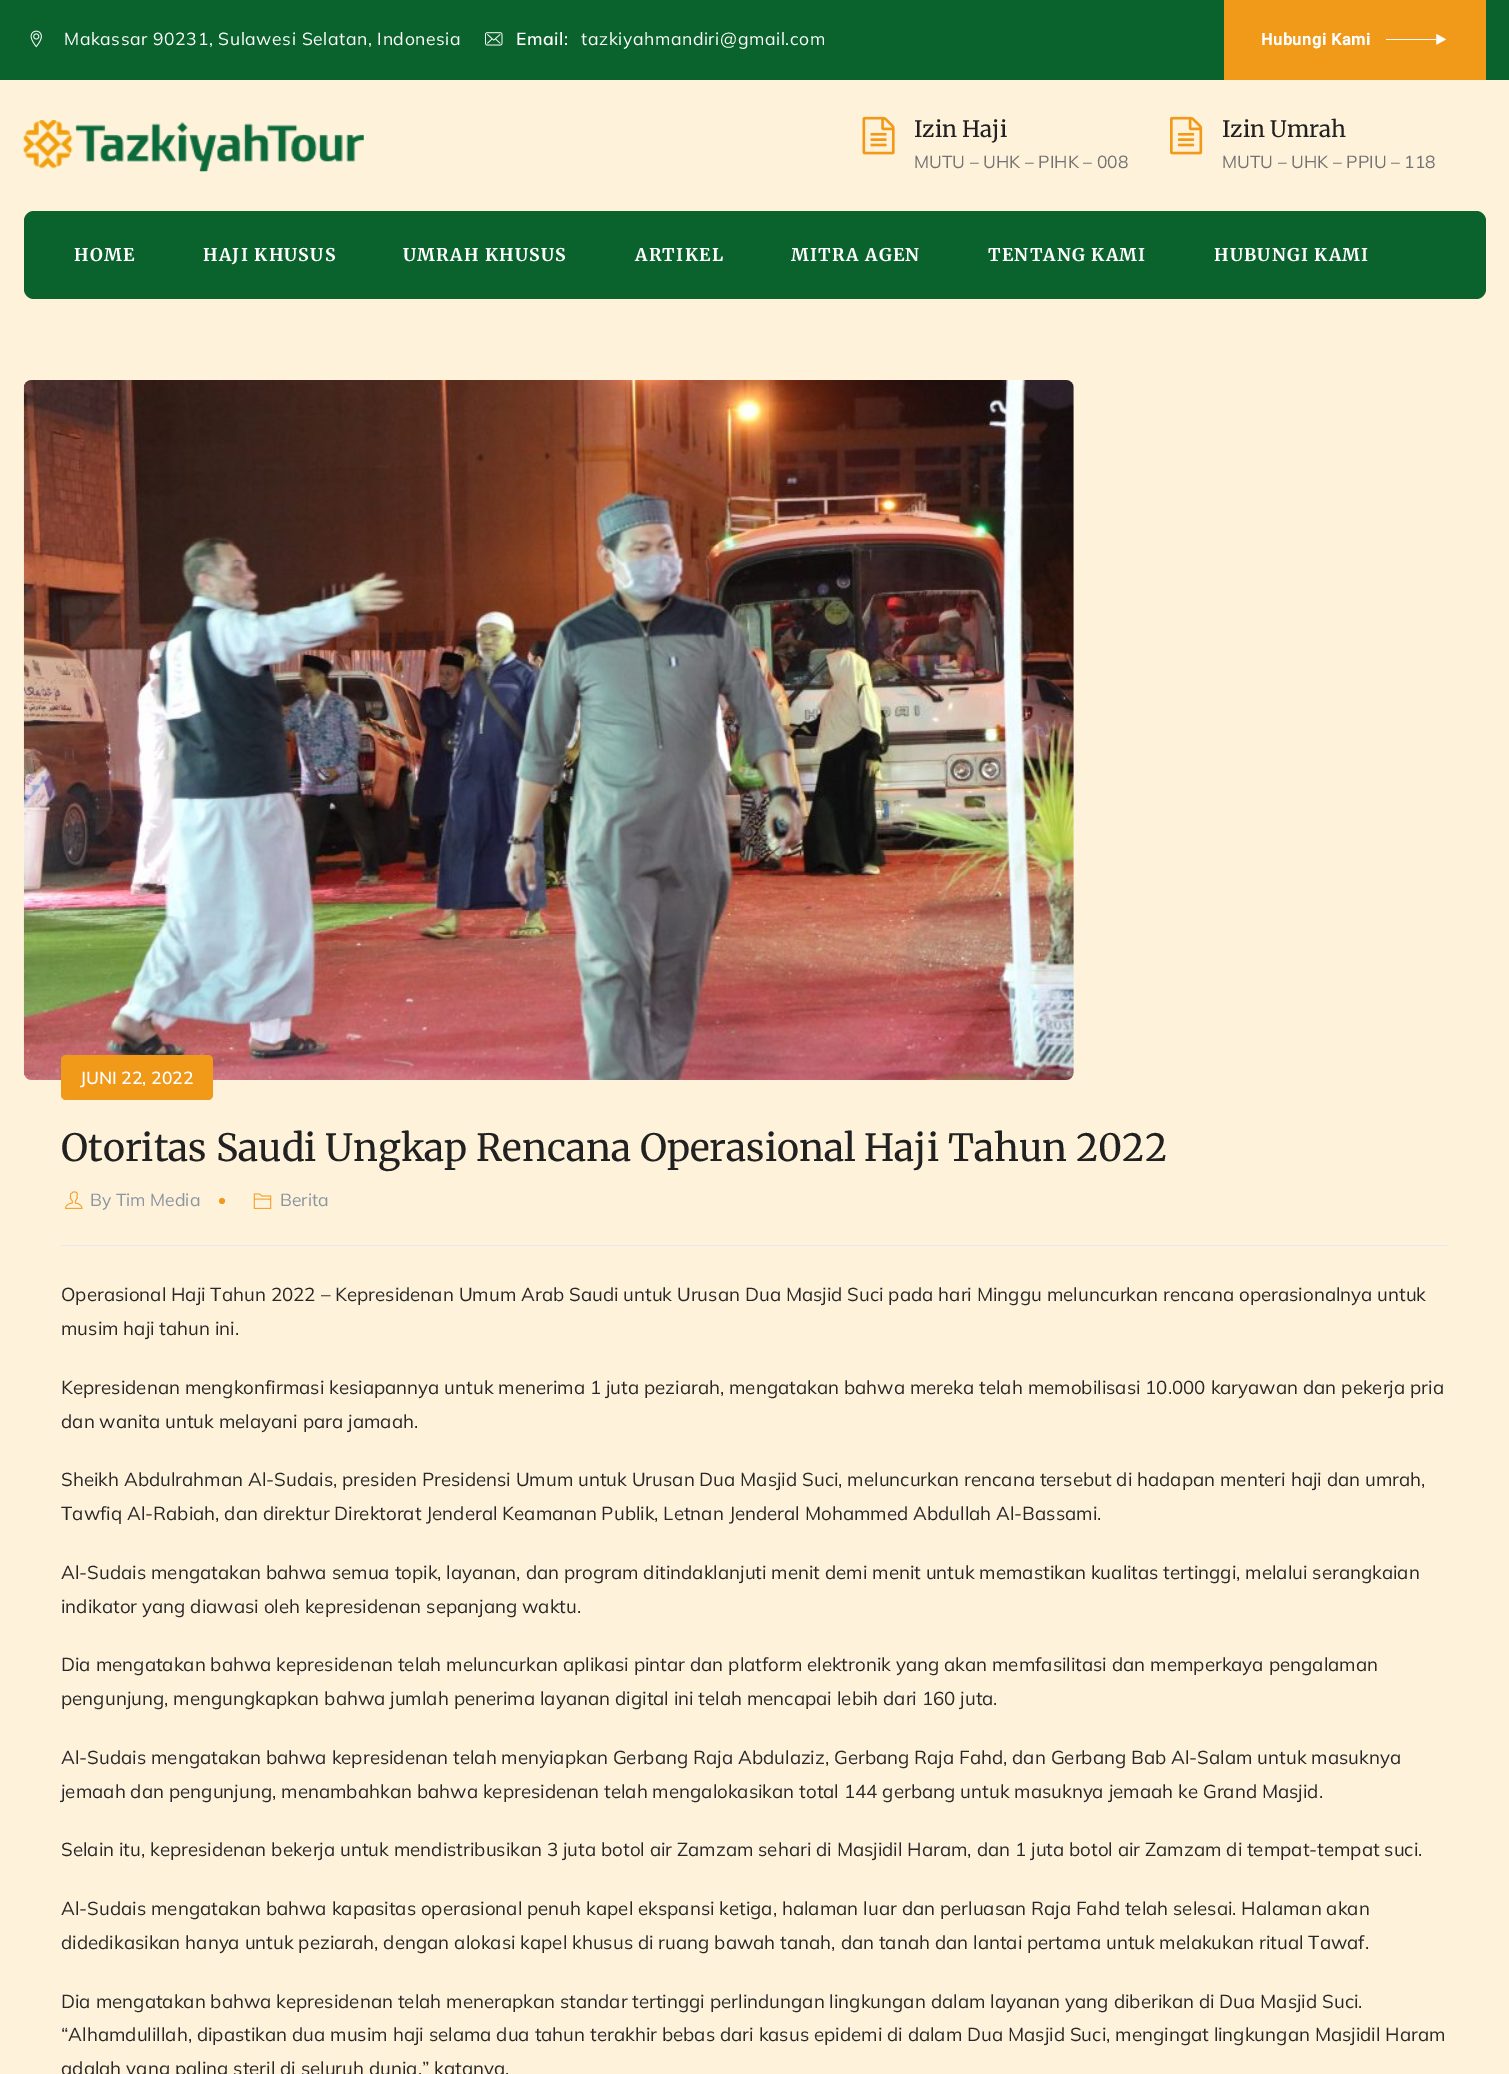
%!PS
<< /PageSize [1509 2074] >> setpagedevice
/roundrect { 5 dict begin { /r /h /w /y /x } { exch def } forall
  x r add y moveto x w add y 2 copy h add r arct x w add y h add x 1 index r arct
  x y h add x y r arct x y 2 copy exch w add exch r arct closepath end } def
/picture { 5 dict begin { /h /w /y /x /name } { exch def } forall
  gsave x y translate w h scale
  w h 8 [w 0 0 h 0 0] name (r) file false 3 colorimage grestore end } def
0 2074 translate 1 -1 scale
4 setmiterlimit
1 0.949 0.859 setrgbcolor
0 0 1509 2074 rectfill
0.039 0.388 0.173 setrgbcolor
0 0 1509 80 rectfill
(img1.rgb) 30 30 12 18 picture
/Mulish-Regular [17.5 0 0 -17.5 0 0] selectfont
1 setgray
64 45 moveto 0.6 0 (Makassar 90231, Sulawesi Selatan, Indonesia) ashow
(img2.rgb) 485 32 18 14 picture
/Mulish-SemiBold [17.5 0 0 -17.5 0 0] selectfont
516 45 moveto 0.6 0 (Email:) ashow
/Mulish-Regular [17.5 0 0 -17.5 0 0] selectfont
581 45 moveto 0.6 0 (tazkiyahmandiri@gmail.com) ashow
0.945 0.6 0.098 setrgbcolor
1224 0 262 80 rectfill
/Roboto-Bold [16.25 0 0 -16.25 0 0] selectfont
1 setgray
1261 45 moveto 0.6 0 (Hubungi Kami) ashow
1386 39 50 1 rectfill
(img3.rgb) 1436 34 10 11 picture
(img4.rgb) 23 120 341 52 picture
(img5.rgb) 862 116 33 39 picture
/Merriweather-Regular [22.5 0 0 -22.5 0 0] selectfont
0.129 setgray
914 137 moveto (Izin Haji) show
/Mulish-Regular [17.5 0 0 -17.5 0 0] selectfont
0.451 setgray
914 168 moveto (MUTU – UHK – PIHK – 008) show
(img6.rgb) 1170 116 33 39 picture
/Merriweather-Regular [22.5 0 0 -22.5 0 0] selectfont
0.129 setgray
1222 137 moveto (Izin Umrah) show
/Mulish-Regular [17.5 0 0 -17.5 0 0] selectfont
0.451 setgray
1222 168 moveto (MUTU – UHK – PPIU – 118) show
0.039 0.388 0.173 setrgbcolor
24 211 1462 88 10 roundrect fill
/Merriweather-Bold [17.5 0 0 -17.5 0 0] selectfont
1 setgray
74 261 moveto 1.25 0 (HOME) ashow
203 261 moveto 1.25 0 (HAJI KHUSUS) ashow
403 261 moveto 1.25 0 (UMRAH KHUSUS) ashow
635 261 moveto 1.25 0 (ARTIKEL) ashow
791 261 moveto 1.25 0 (MITRA AGEN) ashow
988 261 moveto 1.25 0 (TENTANG KAMI) ashow
1214 261 moveto 1.25 0 (HUBUNGI KAMI) ashow
(img7.rgb) 23 380 1051 700 picture
0.945 0.6 0.098 setrgbcolor
61 1055 152 45 5 roundrect fill
/Mulish-SemiBold [17.5 0 0 -17.5 0 0] selectfont
1 setgray
80 1084 moveto (JUNI 22, 2022) show
0.898 0.91 0.937 setrgbcolor
61 1245 1388 1 rectfill
/Merriweather-Regular [37.5 0 0 -37.5 0 0] selectfont
0.129 setgray
61 1161 moveto (Otoritas Saudi Ungkap Rencana Operasional Haji Tahun 2022) show
(img8.rgb) 65 1191 18 18 picture
/Mulish-Regular [17.5 0 0 -17.5 0 0] selectfont
0.545 0.584 0.627 setrgbcolor
90 1206 moveto (By Tim Media) show
0.945 0.6 0.098 setrgbcolor
newpath 222 1201 3 0 360 arc closepath fill
(img9.rgb) 253 1193 19 16 picture
0.545 0.584 0.627 setrgbcolor
280 1206 moveto (Berita) show
/Mulish-Regular [18.75 0 0 -18.75 0 0] selectfont
0.157 setgray
61 1301 moveto (Operasional Haji Tahun 2022 – Kepresidenan Umum Arab Saudi untuk Urusan Dua Masjid Suci pada hari Minggu meluncurkan rencana operasionalnya untuk) show
61 1335 moveto (musim haji tahun ini.) show
61 1394 moveto (Kepresidenan mengkonfirmasi kesiapannya untuk menerima 1 juta peziarah, mengatakan bahwa mereka telah memobilisasi 10.000 karyawan dan pekerja pria) show
61 1428 moveto (dan wanita untuk melayani para jamaah.) show
61 1486 moveto (Sheikh Abdulrahman Al-Sudais, presiden Presidensi Umum untuk Urusan Dua Masjid Suci, meluncurkan rencana tersebut di hadapan menteri haji dan umrah,) show
61 1520 moveto (Tawfiq Al-Rabiah, dan direktur Direktorat Jenderal Keamanan Publik, Letnan Jenderal Mohammed Abdullah Al-Bassami.) show
61 1579 moveto (Al-Sudais mengatakan bahwa semua topik, layanan, dan program ditindaklanjuti menit demi menit untuk memastikan kualitas tertinggi, melalui serangkaian) show
61 1613 moveto (indikator yang diawasi oleh kepresidenan sepanjang waktu.) show
61 1671 moveto (Dia mengatakan bahwa kepresidenan telah meluncurkan aplikasi pintar dan platform elektronik yang akan memfasilitasi dan memperkaya pengalaman) show
61 1705 moveto (pengunjung, mengungkapkan bahwa jumlah penerima layanan digital ini telah mencapai lebih dari 160 juta.) show
61 1764 moveto (Al-Sudais mengatakan bahwa kepresidenan telah menyiapkan Gerbang Raja Abdulaziz, Gerbang Raja Fahd, dan Gerbang Bab Al-Salam untuk masuknya) show
61 1798 moveto (jemaah dan pengunjung, menambahkan bahwa kepresidenan telah mengalokasikan total 144 gerbang untuk masuknya jemaah ke Grand Masjid.) show
61 1856 moveto (Selain itu, kepresidenan bekerja untuk mendistribusikan 3 juta botol air Zamzam sehari di Masjidil Haram, dan 1 juta botol air Zamzam di tempat-tempat suci.) show
61 1915 moveto (Al-Sudais mengatakan bahwa kapasitas operasional penuh kapel ekspansi ketiga, halaman luar dan perluasan Raja Fahd telah selesai. Halaman akan) show
61 1949 moveto (didedikasikan hanya untuk peziarah, dengan alokasi kapel khusus di ruang bawah tanah, dan tanah dan lantai pertama untuk melakukan ritual Tawaf.) show
61 2008 moveto (Dia mengatakan bahwa kepresidenan telah menerapkan standar tertinggi perlindungan lingkungan dalam layanan yang diberikan di Dua Masjid Suci.) show
61 2041 moveto (“Alhamdulillah, dipastikan dua musim haji selama dua tahun terakhir bebas dari kasus epidemi di dalam Dua Masjid Suci, mengingat lingkungan Masjidil Haram) show
61 2075 moveto (adalah yang paling steril di seluruh dunia,” katanya.) show
showpage
